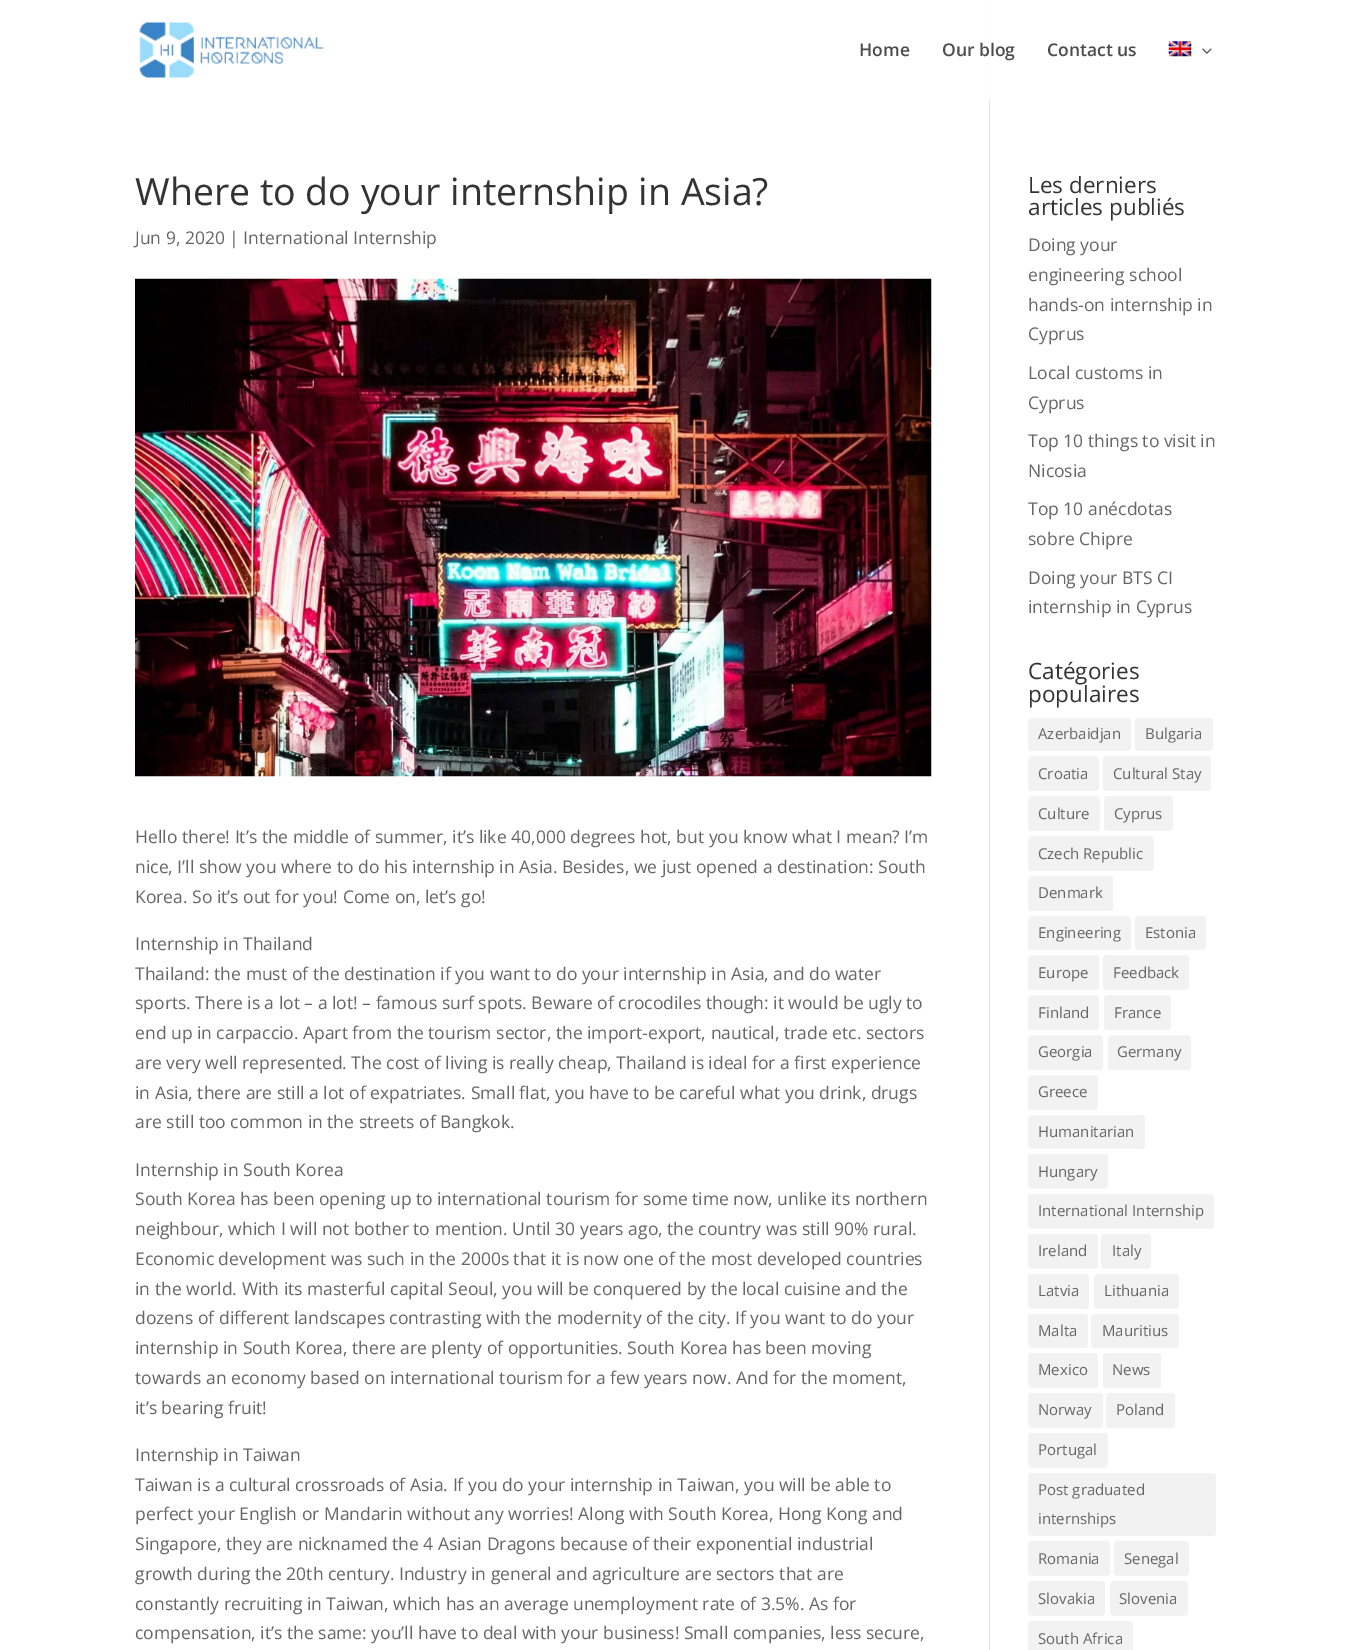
%!PS
<< /PageSize [1351 1650] >> setpagedevice
/roundrect { 5 dict begin { /r /h /w /y /x } { exch def } forall
  x r add y moveto x w add y 2 copy h add r arct x w add y h add x 1 index r arct
  x y h add x y r arct x y 2 copy exch w add exch r arct closepath end } def
/picture { 5 dict begin { /h /w /y /x /name } { exch def } forall
  gsave x y translate w h scale
  w h 8 [w 0 0 h 0 0] name (r) file false 3 colorimage grestore end } def
0 1650 translate 1 -1 scale
4 setmiterlimit
1 setgray
0 0 1351 1650 rectfill
(img1.rgb) 139 22 185 56 picture
/OpenSans-SemiBold [17.5 0 0 -17.5 0 0] selectfont
0.298 setgray
859 56 moveto (Home) show
0.984 setgray
989 0 1 100 rectfill
0.298 setgray
942 56 moveto (Our blog) show
1047 56 moveto (Contact us) show
(img2.rgb) 1168 41 24 16 picture
(img3.rgb) 1202 48 10 6 picture
0.886 setgray
989 100 1 1550 rectfill
/OpenSans-Regular [37.5 0 0 -37.5 0 0] selectfont
0.2 setgray
135 205 moveto (Where to do your internship in Asia?) show
/OpenSans-Regular [17.5 0 0 -17.5 0 0] selectfont
0.4 setgray
135 244 moveto (Jun 9, 2020 | International Internship) show
(img4.rgb) 135 278 797 499 picture
135 843 moveto (Hello there! It’s the middle of summer, it’s like 40,000 degrees hot, but you know what I mean? I’m) show
135 873 moveto (nice, I’ll show you where to do his internship in Asia. Besides, we just opened a destination: South) show
135 903 moveto (Korea. So it’s out for you! Come on, let’s go!) show
135 950 moveto (Internship in Thailand) show
135 980 moveto (Thailand: the must of the destination if you want to do your internship in Asia, and do water) show
135 1009 moveto (sports. There is a lot – a lot! – famous surf spots. Beware of crocodiles though: it would be ugly to) show
135 1039 moveto (end up in carpaccio. Apart from the tourism sector, the import-export, nautical, trade etc. sectors) show
135 1069 moveto (are very well represented. The cost of living is really cheap, Thailand is ideal for a first experience) show
135 1099 moveto (in Asia, there are still a lot of expatriates. Small flat, you have to be careful what you drink, drugs) show
135 1128 moveto (are still too common in the streets of Bangkok.) show
135 1176 moveto (Internship in South Korea) show
135 1205 moveto (South Korea has been opening up to international tourism for some time now, unlike its northern) show
135 1235 moveto (neighbour, which I will not bother to mention. Until 30 years ago, the country was still 90% rural.) show
135 1265 moveto (Economic development was such in the 2000s that it is now one of the most developed countries) show
135 1295 moveto (in the world. With its masterful capital Seoul, you will be conquered by the local cuisine and the) show
135 1324 moveto (dozens of different landscapes contrasting with the modernity of the city. If you want to do your) show
135 1354 moveto (internship in South Korea, there are plenty of opportunities. South Korea has been moving) show
135 1384 moveto (towards an economy based on international tourism for a few years now. And for the moment,) show
135 1414 moveto (it’s bearing fruit!) show
135 1461 moveto (Internship in Taiwan) show
135 1491 moveto (Taiwan is a cultural crossroads of Asia. If you do your internship in Taiwan, you will be able to) show
135 1520 moveto (perfect your English or Mandarin without any worries! Along with South Korea, Hong Kong and) show
135 1550 moveto (Singapore, they are nicknamed the 4 Asian Dragons because of their exponential industrial) show
135 1580 moveto (growth during the 20th century. Industry in general and agriculture are sectors that are) show
135 1610 moveto (constantly recruiting in Taiwan, which has an average unemployment rate of 3.5%. As for) show
135 1639 moveto (compensation, it’s the same: you’ll have to deal with your business! Small companies, less secure,) show
/OpenSans-Regular [22.5 0 0 -22.5 0 0] selectfont
0.2 setgray
1028 193 moveto (Les derniers) show
1028 215 moveto (articles publiés) show
/OpenSans-Regular [17.5 0 0 -17.5 0 0] selectfont
0.4 setgray
1028 251 moveto (Doing your) show
1028 281 moveto (engineering school) show
1028 311 moveto (hands-on internship in) show
1028 340 moveto (Cyprus) show
1028 379 moveto (Local customs in) show
1028 409 moveto (Cyprus) show
1028 447 moveto (Top 10 things to visit in) show
1028 477 moveto (Nicosia) show
1028 515 moveto (Top 10 anécdotas) show
1028 545 moveto (sobre Chipre) show
1028 584 moveto (Doing your BTS CI) show
1028 613 moveto (internship in Cyprus) show
/OpenSans-Regular [22.5 0 0 -22.5 0 0] selectfont
0.2 setgray
1028 679 moveto (Catégories) show
1028 702 moveto (populaires) show
0.949 setgray
1028 718 103 33 4 roundrect fill
/OpenSans-Regular [15 0 0 -15 0 0] selectfont
0.4 setgray
1038 739 moveto (Azerbaidjan) show
0.949 setgray
1135 718 78 33 4 roundrect fill
0.4 setgray
1145 739 moveto (Bulgaria) show
0.949 setgray
1028 756 71 35 4 roundrect fill
0.4 setgray
1038 779 moveto (Croatia) show
0.949 setgray
1103 756 108 35 4 roundrect fill
0.4 setgray
1113 779 moveto (Cultural Stay) show
0.949 setgray
1028 796 72 35 4 roundrect fill
0.4 setgray
1038 819 moveto (Culture) show
0.949 setgray
1104 796 69 35 4 roundrect fill
0.4 setgray
1114 819 moveto (Cyprus) show
0.949 setgray
1028 836 126 35 4 roundrect fill
0.4 setgray
1038 859 moveto (Czech Republic) show
0.949 setgray
1028 876 85 35 4 roundrect fill
0.4 setgray
1038 898 moveto (Denmark) show
0.949 setgray
1028 916 103 34 4 roundrect fill
0.4 setgray
1038 938 moveto (Engineering) show
0.949 setgray
1135 916 71 34 4 roundrect fill
0.4 setgray
1145 938 moveto (Estonia) show
0.949 setgray
1028 955 71 35 4 roundrect fill
0.4 setgray
1038 978 moveto (Europe) show
0.949 setgray
1103 955 86 35 4 roundrect fill
0.4 setgray
1113 978 moveto (Feedback) show
0.949 setgray
1028 995 71 35 4 roundrect fill
0.4 setgray
1038 1018 moveto (Finland) show
0.949 setgray
1104 995 67 35 4 roundrect fill
0.4 setgray
1114 1018 moveto (France) show
0.949 setgray
1028 1035 75 35 4 roundrect fill
0.4 setgray
1038 1057 moveto (Georgia) show
0.949 setgray
1108 1035 83 35 4 roundrect fill
0.4 setgray
1117 1057 moveto (Germany) show
0.949 setgray
1028 1075 70 35 4 roundrect fill
0.4 setgray
1038 1097 moveto (Greece) show
0.949 setgray
1028 1115 117 34 4 roundrect fill
0.4 setgray
1038 1137 moveto (Humanitarian) show
0.949 setgray
1028 1154 80 35 4 roundrect fill
0.4 setgray
1038 1177 moveto (Hungary) show
0.949 setgray
1028 1194 186 35 4 roundrect fill
0.4 setgray
1038 1216 moveto (International Internship) show
0.949 setgray
1028 1234 70 35 4 roundrect fill
0.4 setgray
1038 1256 moveto (Ireland) show
0.949 setgray
1101 1234 50 35 4 roundrect fill
0.4 setgray
1112 1256 moveto (Italy) show
0.949 setgray
1028 1274 61 35 4 roundrect fill
0.4 setgray
1038 1296 moveto (Latvia) show
0.949 setgray
1094 1274 85 35 4 roundrect fill
0.4 setgray
1104 1296 moveto (Lithuania) show
0.949 setgray
1028 1314 60 34 4 roundrect fill
0.4 setgray
1038 1336 moveto (Malta) show
0.949 setgray
1091 1314 88 34 4 roundrect fill
0.4 setgray
1102 1336 moveto (Mauritius) show
0.949 setgray
1028 1353 70 35 4 roundrect fill
0.4 setgray
1038 1375 moveto (Mexico) show
0.949 setgray
1103 1353 58 35 4 roundrect fill
0.4 setgray
1112 1375 moveto (News) show
0.949 setgray
1028 1393 75 35 4 roundrect fill
0.4 setgray
1038 1415 moveto (Norway) show
0.949 setgray
1106 1393 69 35 4 roundrect fill
0.4 setgray
1116 1415 moveto (Poland) show
0.949 setgray
1028 1433 80 35 4 roundrect fill
0.4 setgray
1038 1455 moveto (Portugal) show
0.949 setgray
1028 1473 188 63 4 roundrect fill
0.4 setgray
1038 1495 moveto (Post graduated) show
1038 1524 moveto (internships) show
0.949 setgray
1028 1541 82 35 4 roundrect fill
0.4 setgray
1038 1564 moveto (Romania) show
0.949 setgray
1114 1541 75 35 4 roundrect fill
0.4 setgray
1124 1564 moveto (Senegal) show
0.949 setgray
1028 1581 77 35 4 roundrect fill
0.4 setgray
1038 1604 moveto (Slovakia) show
0.949 setgray
1110 1581 78 35 4 roundrect fill
0.4 setgray
1119 1604 moveto (Slovenia) show
0.949 setgray
1028 1621 105 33 4 roundrect fill
0.4 setgray
1038 1644 moveto (South Africa) show
showpage
